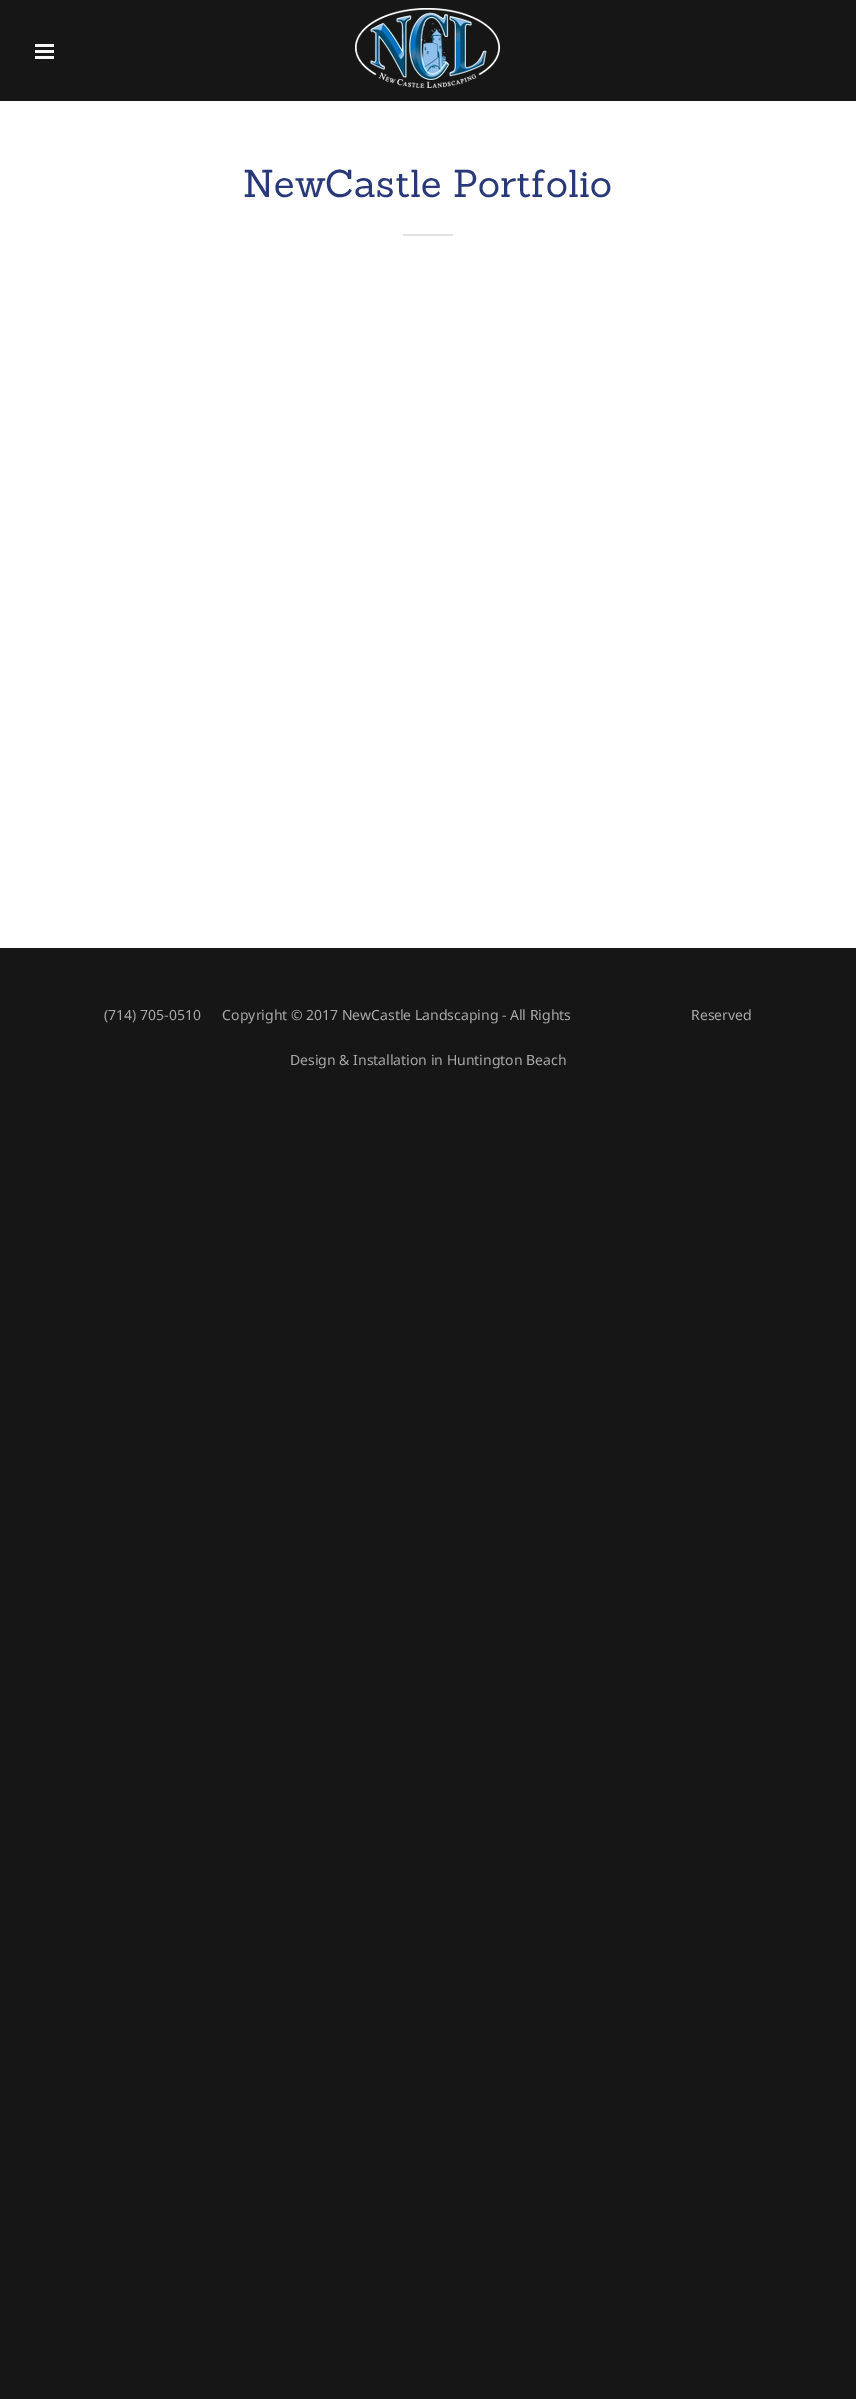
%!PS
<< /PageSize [856 2399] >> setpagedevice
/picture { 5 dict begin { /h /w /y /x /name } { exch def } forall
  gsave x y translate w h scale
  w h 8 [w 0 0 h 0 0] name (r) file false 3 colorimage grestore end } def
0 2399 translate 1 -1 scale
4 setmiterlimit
0.086 setgray
0 0 856 2399 rectfill
0.969 setgray
35 44 19 3 rectfill
35 50 19 3 rectfill
35 56 19 3 rectfill
(img1.rgb) 355 8 145 80 picture
1 setgray
0 101 856 847 rectfill
/Sanchez-Regular [38 0 0 -38 0 0] selectfont
0.157 0.22 0.471 setrgbcolor
243 197 moveto (NewCastle Portfolio) show
0.886 setgray
403 234 50 2 rectfill
/NotoSans-Regular [14 0 0 -14 0 0] selectfont
0.663 setgray
104 1020 moveto (\(714\) 705-0510      Copyright © 2017 NewCastle Landscaping - All Rights                                 Reserved) show
290 1065 moveto (Design & Installation in Huntington Beach) show
showpage
